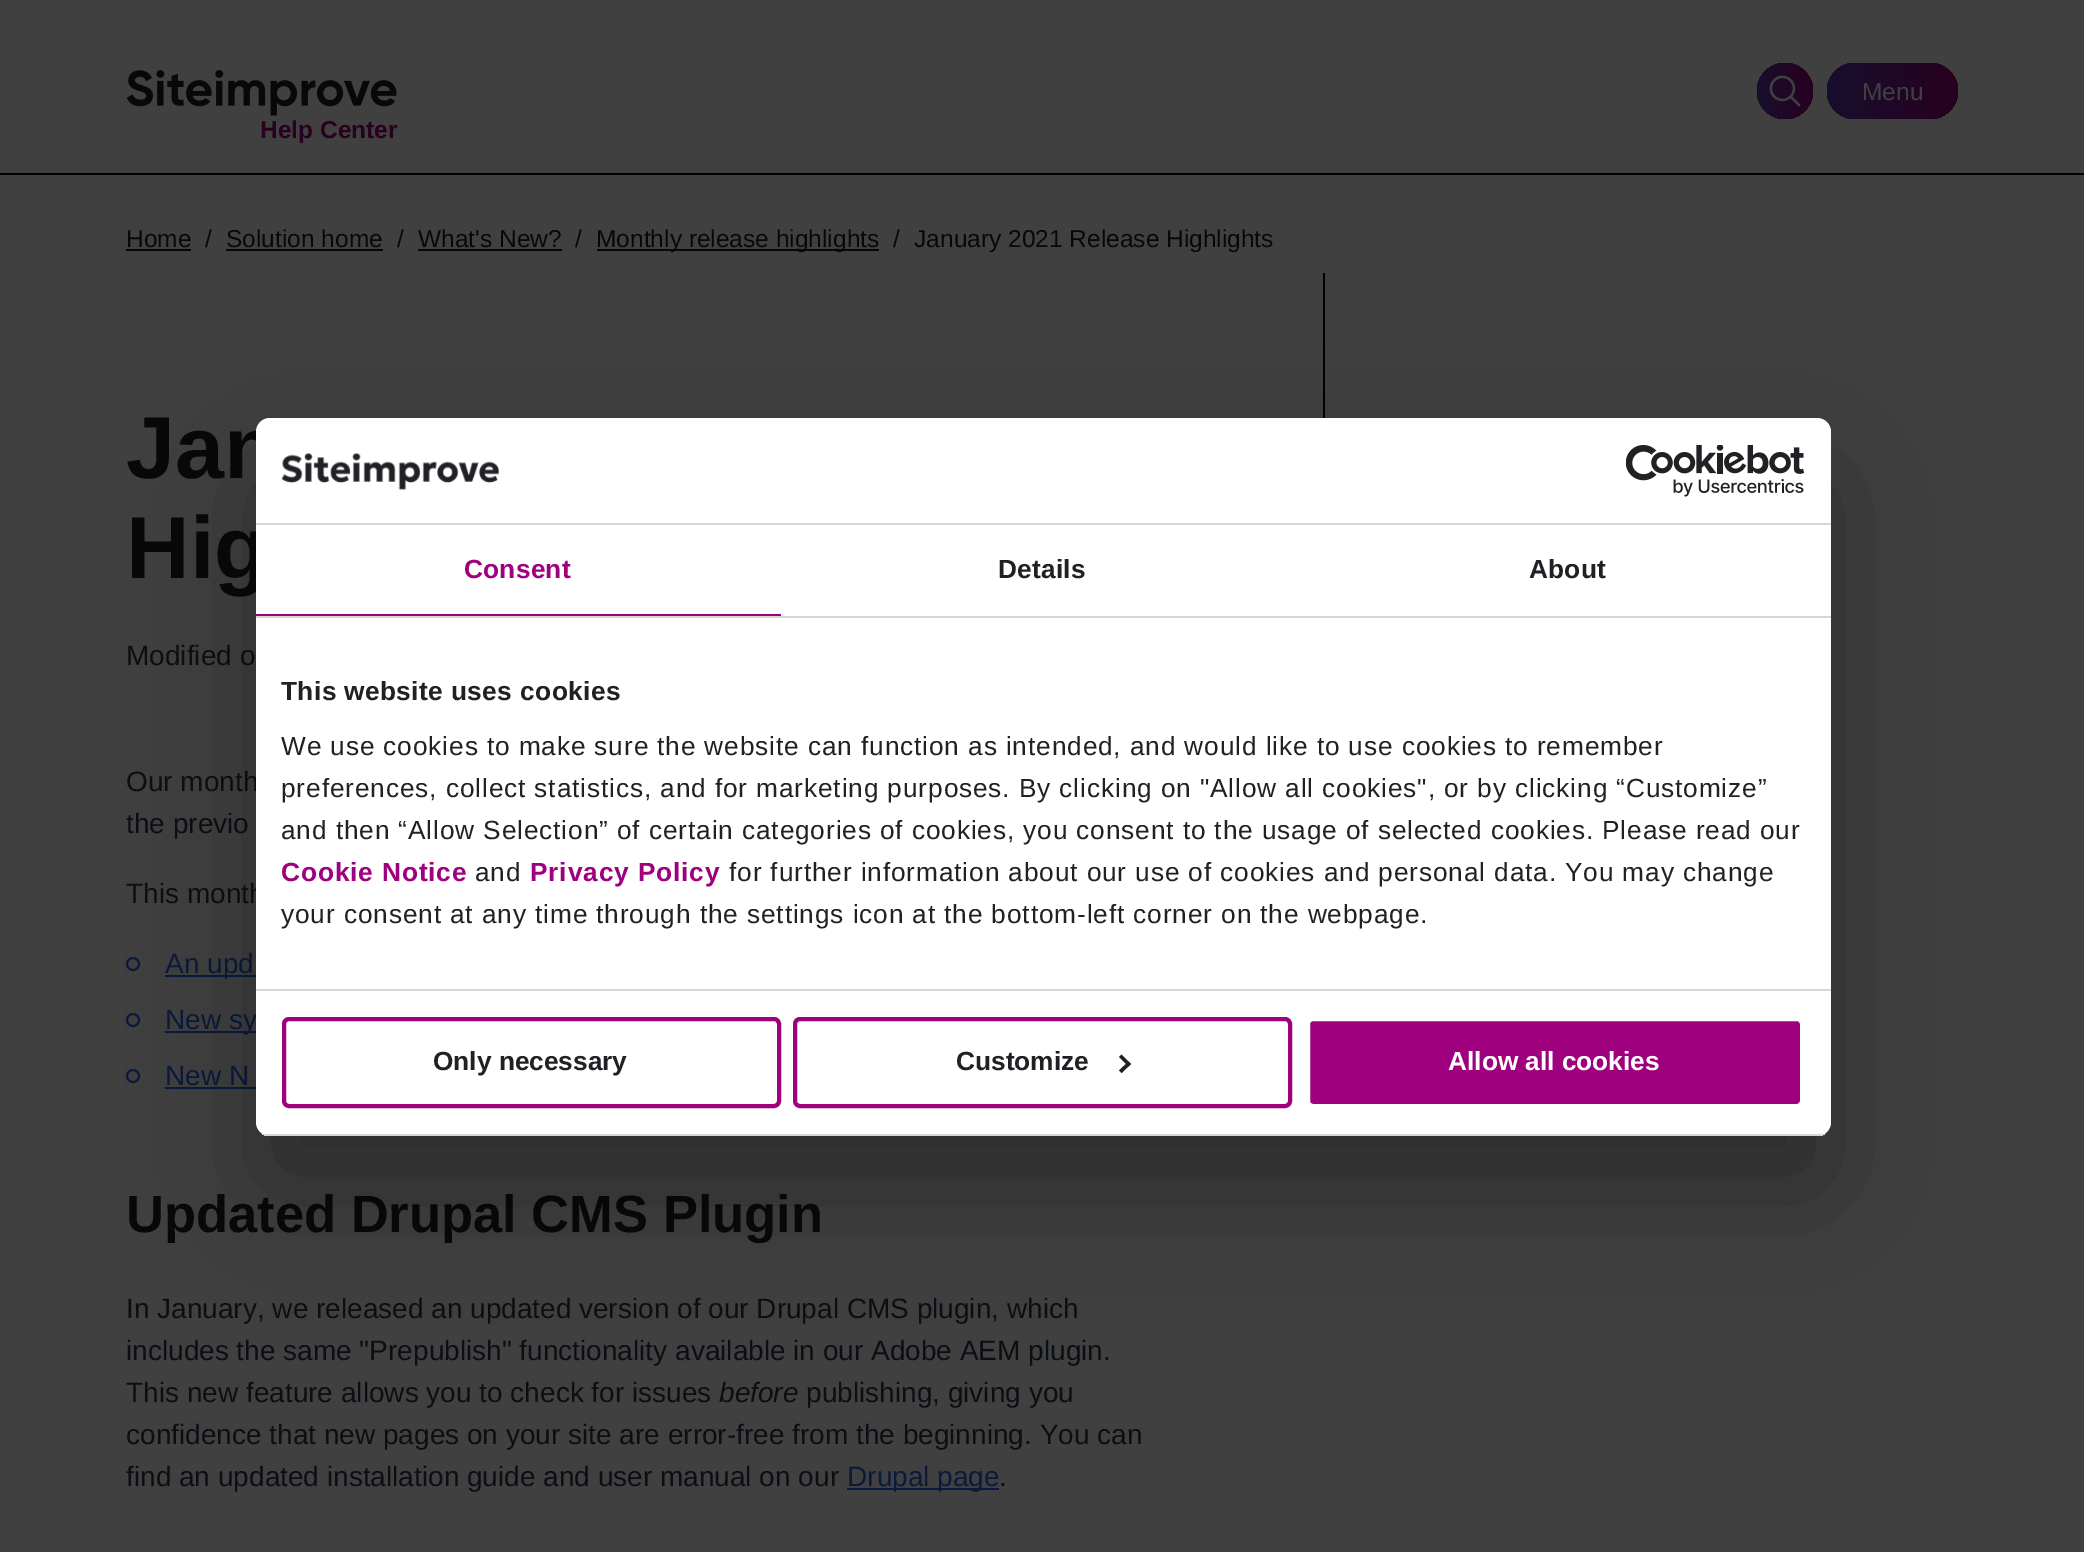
%!PS
<< /PageSize [2084 1552] /PageUsesTransparency true >> setpagedevice
/alpha { dup .setfillconstantalpha .setstrokeconstantalpha } def
/roundrect { 5 dict begin { /r /h /w /y /x } { exch def } forall
  x r add y moveto x w add y 2 copy h add r arct x w add y h add x 1 index r arct
  x y h add x y r arct x y 2 copy exch w add exch r arct closepath end } def
/shadow { 12 dict begin { /a /b /q /h /w /y /x } { exch def } forall gsave /was 0 def
  9 -2 -9 { dup b mul 4 div /e exch def 1 sub .425 mul 2.718 exch exp 1 add a .99 .min exch div /now exch def
    1 1 now sub 1 was sub div sub alpha /was now def
    w h .min e 2 mul add 0 gt { x e sub y e sub w e 2 mul add h e 2 mul add
      q e add b .6 mul add w h .min 2 div e add .min 0 .max roundrect fill } if } for grestore end } def
/picture { 5 dict begin { /h /w /y /x /name } { exch def } forall
  gsave x y translate w h scale
  w h 8 [w 0 0 h 0 0] name (r) file false 3 colorimage grestore end } def
0 .pushpdf14devicefilter
0 1552 translate 1 -1 scale
4 setmiterlimit
0.251 setgray
0 0 2084 1552 rectfill
0 0 0.039 setrgbcolor
0 173 2084 2 rectfill
gsave newpath 1785 91 28 0 360 arc closepath clip newpath
<< /ShadingType 2 /ColorSpace /DeviceRGB /Coords [1701 91 1813 91] /Extend [true true] /Function << /FunctionType 2 /Domain [0 1] /C0 [0.031 0.11 0.231] /C1 [0.157 0 0.125] /N 1 >> >> shfill grestore
(img1.rgb) 1769 75 32 32 picture
gsave 1827 63 131 56 28 roundrect clip newpath
<< /ShadingType 2 /ColorSpace /DeviceRGB /Coords [1696 91 1958 91] /Extend [true true] /Function << /FunctionType 2 /Domain [0 1] /C0 [0.031 0.11 0.231] /C1 [0.157 0 0.125] /N 1 >> >> shfill grestore
/LiberationSans-Regular [24.5 0 0 -24.5 0 0] selectfont
0.251 setgray
1862 100 moveto (Menu) show
(img2.rgb) 126 70 271 46 picture
/LiberationSans-Bold [24.5 0 0 -24.5 0 0] selectfont
0.157 0 0.125 setrgbcolor
260 138 moveto (Help Center) show
/LiberationSans-Regular [24.5 0 0 -24.5 0 0] selectfont
0.031 0.031 0.035 setrgbcolor
126 247 moveto (Home) show
126 249 65 2 rectfill
205 247 moveto (/) show
226 247 moveto (Solution home) show
226 249 157 2 rectfill
397 247 moveto (/) show
418 247 moveto (What's New?) show
418 249 144 2 rectfill
575 247 moveto (/) show
597 249 282 2 rectfill
596 247 moveto (Monthly release highlights) show
893 247 moveto (/) show
914 247 moveto (January 2021 Release Highlights) show
0 0 0.039 setrgbcolor
1323 273 2 145 rectfill
/LiberationSans-Bold [88 0 0 -88 0 0] selectfont
0.031 0.031 0.035 setrgbcolor
126 478 moveto (Jan) show
126 578 moveto (Hig) show
/LiberationSans-Regular [28 0 0 -28 0 0] selectfont
0.043 0.055 0.075 setrgbcolor
126 665 moveto (Modified o) show
126 791 moveto (Our month) show
126 833 moveto (the previo) show
126 903 moveto (This month) show
0.039 0.102 0.235 setrgbcolor
2 setlinewidth
newpath 133 964 6 0 360 arc closepath stroke
165 975 91 2 rectfill
165 973 moveto (An upd) show
newpath 133 1020 6 0 360 arc closepath stroke
165 1031 91 2 rectfill
165 1029 moveto (New sy) show
newpath 133 1076 6 0 360 arc closepath stroke
165 1085 moveto (New N) show
165 1087 91 2 rectfill
/LiberationSans-Bold [52.5 0 0 -52.5 0 0] selectfont
0.031 0.031 0.035 setrgbcolor
126 1232 moveto (Updated Drupal CMS Plugin) show
/LiberationSans-Regular [28 0 0 -28 0 0] selectfont
0.043 0.055 0.075 setrgbcolor
126 1318 moveto (In January, we released an updated version of our Drupal CMS plugin, which) show
126 1360 moveto (includes the same "Prepublish" functionality available in our Adobe AEM plugin.) show
126 1402 moveto (This new feature allows you to check for issues) show
/LiberationSans-Italic [28 0 0 -28 0 0] selectfont
719 1402 moveto (before) show
/LiberationSans-Regular [28 0 0 -28 0 0] selectfont
806 1402 moveto (publishing, giving you) show
126 1444 moveto (confidence that new pages on your site are error-free from the beginning. You can) show
126 1486 moveto (find an updated installation guide and user manual on our) show
0.039 0.102 0.235 setrgbcolor
847 1488 152 2 rectfill
847 1486 moveto (Drupal page) show
0.043 0.055 0.075 setrgbcolor
999 1486 moveto (.) show
0 setgray
256 474 1575 718 14 59.5 0.3 shadow
1 setgray
256 418 1575 718 14 roundrect fill
0.839 setgray
256 523 1575 2 rectfill
(img3.rgb) 281 453 218 37 picture
(img4.rgb) 1626 445 178 52 picture
256 616 1575 2 rectfill
0.62 0 0.494 setrgbcolor
256 614 525 2 rectfill
/LiberationSans-Bold [26.25 0 0 -26.25 0 0] selectfont
464 578 moveto 0.25 0 (Consent) ashow
0.125 0.129 0.141 setrgbcolor
998 578 moveto 0.25 0 (Details) ashow
1529 578 moveto 0.25 0 (About) ashow
0.839 setgray
256 989 1575 2 rectfill
0.125 0.129 0.141 setrgbcolor
281 700 moveto 0.4 0 (This website uses cookies) ashow
/LiberationSans-Regular [26.25 0 0 -26.25 0 0] selectfont
281 755 moveto 0.88 0 (We use cookies to make sure the website can function as intended, and would like to use cookies to remember) ashow
281 797 moveto 0.88 0 (preferences, collect statistics, and for marketing purposes. By clicking on "Allow all cookies", or by clicking “Customize”) ashow
281 839 moveto 0.88 0 (and then “Allow Selection” of certain categories of cookies, you consent to the usage of selected cookies. Please read our) ashow
/LiberationSans-Bold [26.25 0 0 -26.25 0 0] selectfont
0.62 0 0.494 setrgbcolor
281 881 moveto 0.88 0 (Cookie Notice) ashow
/LiberationSans-Regular [26.25 0 0 -26.25 0 0] selectfont
0.125 0.129 0.141 setrgbcolor
475 881 moveto 0.88 0 (and) ashow
/LiberationSans-Bold [26.25 0 0 -26.25 0 0] selectfont
0.62 0 0.494 setrgbcolor
530 881 moveto 0.88 0 (Privacy Policy) ashow
/LiberationSans-Regular [26.25 0 0 -26.25 0 0] selectfont
0.125 0.129 0.141 setrgbcolor
729 881 moveto 0.88 0 (for further information about our use of cookies and personal data. You may change) ashow
281 923 moveto 0.88 0 (your consent at any time through the settings icon at the bottom-left corner on the webpage.) ashow
gsave
256 418 1575 718 14 roundrect clip newpath
0.839 setgray
256 1134 1575 2 rectfill
grestore
0.62 0 0.494 setrgbcolor
4 setlinewidth
284 1019 495 87 5 roundrect stroke
/LiberationSans-Bold [26.25 0 0 -26.25 0 0] selectfont
0.125 0.129 0.141 setrgbcolor
433 1070 moveto (Only necessary) show
0.62 0 0.494 setrgbcolor
795 1019 495 87 5 roundrect stroke
0.125 0.129 0.141 setrgbcolor
956 1070 moveto (Customize) show
newpath 1121.5 1054.5 moveto 1131 1064 lineto 1128.5 1066.5 lineto 1119 1057 lineto closepath fill
newpath 1128.5 1061.5 moveto 1131 1064 lineto 1121.5 1073 lineto 1119 1070.5 lineto closepath fill
0.62 0 0.494 setrgbcolor
1308 1019 494 87 5 roundrect gsave fill grestore
1 setgray
stroke
1448 1070 moveto (Allow all cookies) show
.poppdf14devicefilter showpage
